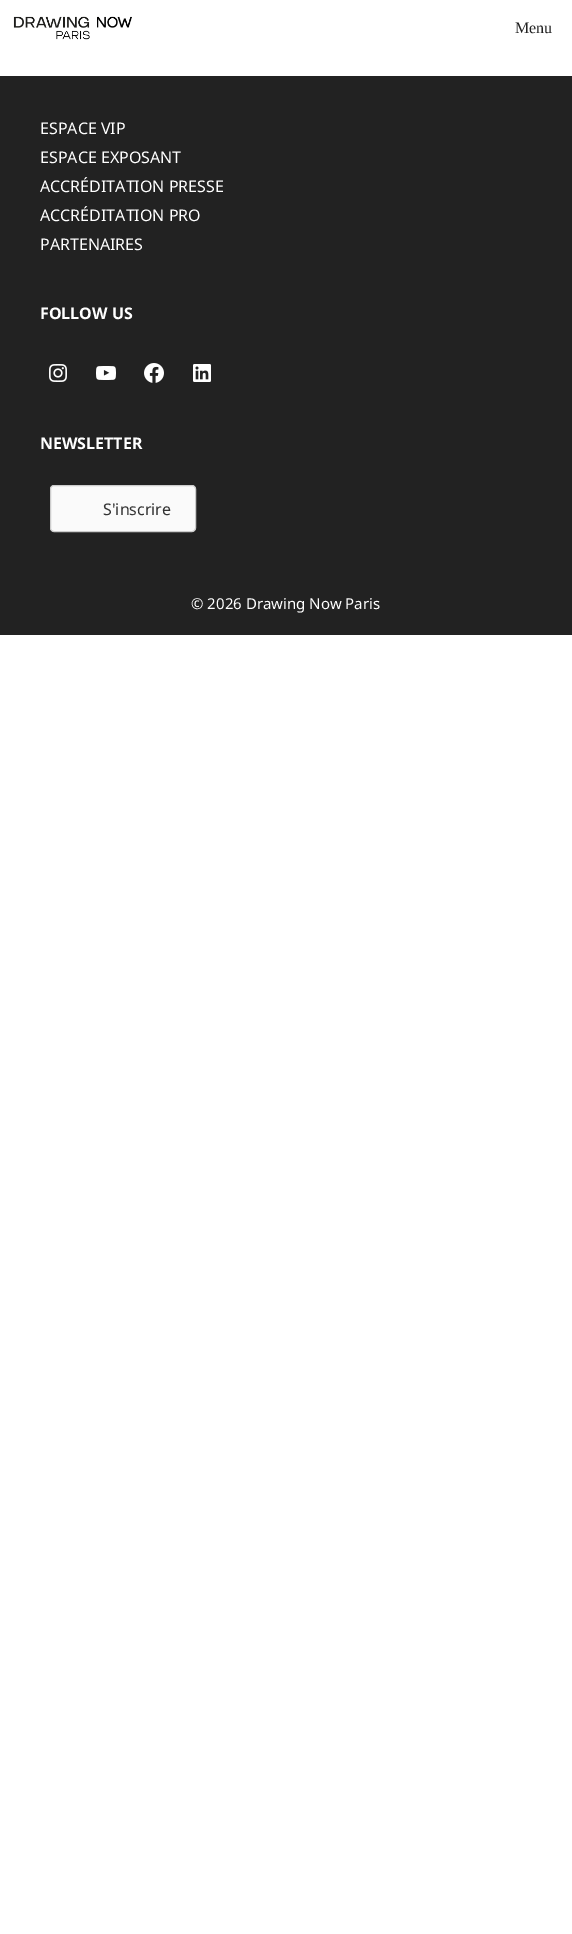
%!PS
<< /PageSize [572 1934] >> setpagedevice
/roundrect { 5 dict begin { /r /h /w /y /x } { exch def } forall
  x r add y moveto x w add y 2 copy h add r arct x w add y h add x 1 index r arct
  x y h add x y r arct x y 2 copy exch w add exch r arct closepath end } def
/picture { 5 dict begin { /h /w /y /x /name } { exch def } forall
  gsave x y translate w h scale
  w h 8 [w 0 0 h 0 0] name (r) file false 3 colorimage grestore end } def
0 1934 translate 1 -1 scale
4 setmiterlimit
1 setgray
0 0 572 1934 rectfill
(img1.rgb) 13 16 119 24 picture
/LiberationSerif-Regular [16 0 0 -16 0 0] selectfont
0.133 setgray
515 33 moveto (Menu) show
0 76 572 559 rectfill
/NotoSans-Regular [16 0 0 -16 0 0] selectfont
1 setgray
40 134 moveto (ESPACE VIP) show
40 163 moveto (ESPACE EXPOSANT) show
40 192 moveto (ACCRÉDITATION PRESSE) show
40 221 moveto (ACCRÉDITATION PRO) show
40 250 moveto (PARTENAIRES) show
/NotoSans-Bold [16 0 0 -16 0 0] selectfont
40 319 moveto (FOLLOW US) show
(img2.rgb) 49 364 18 18 picture
(img3.rgb) 96 366 20 14 picture
(img4.rgb) 144 363 20 20 picture
(img5.rgb) 193 364 18 18 picture
40 449 moveto (NEWSLETTER) show
0.98 setgray
50.5 485.5 145 46 3.5 roundrect gsave fill grestore
0.8 setgray
stroke
/NotoSans-Regular [16 0 0 -16 0 0] selectfont
0.2 setgray
103 515 moveto (S'inscrire) show
/NotoSans-Regular [15 0 0 -15 0 0] selectfont
1 setgray
191 609 moveto (© 2026 Drawing Now Paris) show
showpage
